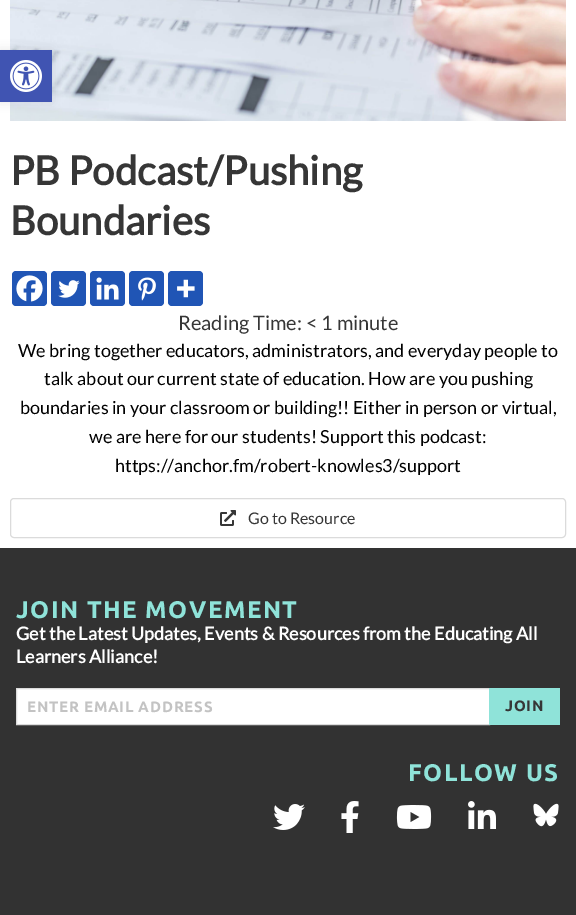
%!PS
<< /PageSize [576 915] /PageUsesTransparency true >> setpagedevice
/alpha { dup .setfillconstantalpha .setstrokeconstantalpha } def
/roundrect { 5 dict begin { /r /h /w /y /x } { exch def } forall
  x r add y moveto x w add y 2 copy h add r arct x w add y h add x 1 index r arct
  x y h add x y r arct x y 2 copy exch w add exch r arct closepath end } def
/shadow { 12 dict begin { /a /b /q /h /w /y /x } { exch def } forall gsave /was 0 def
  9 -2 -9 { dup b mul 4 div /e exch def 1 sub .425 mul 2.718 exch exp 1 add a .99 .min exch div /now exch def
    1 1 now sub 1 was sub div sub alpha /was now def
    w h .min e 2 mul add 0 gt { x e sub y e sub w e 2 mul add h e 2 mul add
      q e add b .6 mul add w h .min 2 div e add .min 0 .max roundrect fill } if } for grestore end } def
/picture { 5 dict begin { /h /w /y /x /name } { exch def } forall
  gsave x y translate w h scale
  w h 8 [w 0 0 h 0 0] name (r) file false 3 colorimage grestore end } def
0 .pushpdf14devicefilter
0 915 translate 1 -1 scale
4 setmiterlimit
1 setgray
0 0 576 915 rectfill
(img2.rgb) 10 0 556 121 picture
0 setgray
0 50 52 52 0 5 0.1 shadow
0.251 0.329 0.698 setrgbcolor
0 50 52 52 rectfill
(img1.rgb) 10 60 32 32 picture
/Lato-Bold [40 0 0 -40 0 0] selectfont
0.212 setgray
10 185 moveto (PB Podcast/Pushing) show
10 235 moveto (Boundaries) show
0.125 0.333 0.71 setrgbcolor
12 271 35 35 4 roundrect fill
(img3.rgb) 16 275 27 27 picture
51 271 35 35 4 roundrect fill
(img4.rgb) 58 280 22 18 picture
90 271 35 35 4 roundrect fill
(img5.rgb) 96 277 23 23 picture
129 271 35 35 4 roundrect fill
(img6.rgb) 138 277 18 24 picture
168 271 35 35 4 roundrect fill
(img7.rgb) 177 279 18 19 picture
/Lato-Regular [20 0 0 -20 0 0] selectfont
0.212 setgray
178 330 moveto (Reading Time: < 1 minute) show
/Lato-Regular [18 0 0 -18 0 0] selectfont
0 setgray
18 357 moveto (We bring together educators, administrators, and everyday people to) show
44 385 moveto (talk about our current state of education. How are you pushing) show
20 414 moveto (boundaries in your classroom or building!! Either in person or virtual,) show
89 443 moveto (we are here for our students! Support this podcast:) show
115 472 moveto (https://anchor.fm/robert-knowles3/support) show
0.859 setgray
10.5 498.5 555 39 3.5 roundrect stroke
(img8.rgb) 220 510 16 16 picture
/Lato-Regular [16 0 0 -16 0 0] selectfont
0.212 setgray
248 524 moveto (Go to Resource) show
0.196 setgray
0 548 576 367 rectfill
/Ubuntu-Bold [24 0 0 -24 0 0] selectfont
0.561 0.89 0.851 setrgbcolor
16 618 moveto 1.5 0 (JOIN THE MOVEMENT) ashow
/Lato-Bold [18 0 0 -18 0 0] selectfont
1 setgray
16 640 moveto (Get the Latest Updates, Events & Resources from the Educating All) show
16 663 moveto (Learners Alliance!) show
newpath 16.5 688.5 moveto 489.5 688.5 lineto 489.5 724.5 lineto 16.5 724.5 lineto closepath gsave fill grestore
0.859 setgray
stroke
/Ubuntu-Bold [15 0 0 -15 0 0] selectfont
0.765 setgray
27 712 moveto 0.75 0 (ENTER EMAIL ADDRESS) ashow
0.561 0.89 0.851 setrgbcolor
489 688 71 37 rectfill
0.212 setgray
505 711 moveto 0.75 0 (JOIN) ashow
/Ubuntu-Bold [24 0 0 -24 0 0] selectfont
0.561 0.89 0.851 setrgbcolor
408 781 moveto 1.5 0 (FOLLOW US) ashow
(img9.rgb) 273 804 32 26 picture
(img10.rgb) 341 801 18 32 picture
(img11.rgb) 396 805 36 24 picture
(img12.rgb) 468 801 28 28 picture
(img13.rgb) 533 803 26 24 picture
.poppdf14devicefilter showpage
